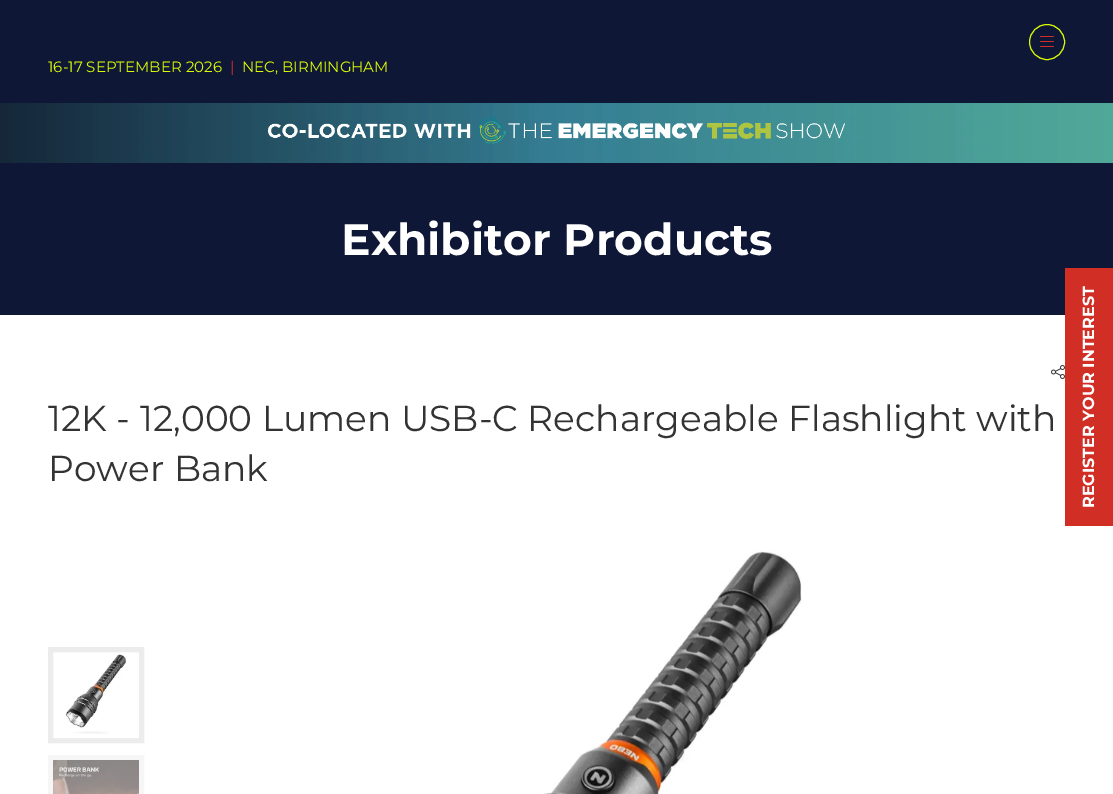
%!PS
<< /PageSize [1113 794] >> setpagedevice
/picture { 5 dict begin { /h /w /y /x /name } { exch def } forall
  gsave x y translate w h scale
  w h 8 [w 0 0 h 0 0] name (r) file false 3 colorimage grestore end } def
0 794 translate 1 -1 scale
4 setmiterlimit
1 setgray
0 0 1113 794 rectfill
0.059 0.09 0.216 setrgbcolor
0 0 1113 103 rectfill
0.863 0.988 0.016 setrgbcolor
newpath 1047 42 17.5 0 360 arc closepath stroke
(img1.rgb) 1040 36 14 11 picture
/Montserrat-Regular [15 0 0 -15 0 0] selectfont
48 72 moveto (16-17 SEPTEMBER 2026) show
0.82 0.18 0.149 setrgbcolor
230 72 moveto (|) show
0.863 0.988 0.016 setrgbcolor
242 72 moveto (NEC, BIRMINGHAM) show
(img2.rgb) 0 103 1113 60 picture
(img3.rgb) 268 116 577 28 picture
0.059 0.09 0.216 setrgbcolor
0 163 1113 152 rectfill
/Montserrat-Bold [44 0 0 -44 0 0] selectfont
1 setgray
341 255 moveto (Exhibitor Products) show
(img4.rgb) 1051 365 14 14 picture
/Montserrat-Regular [36 0 0 -36 0 0] selectfont
0.2 setgray
48 431 moveto (12K - 12,000 Lumen USB-C Rechargeable Flashlight with) show
48 481 moveto (Power Bank) show
0.929 0.925 0.925 setrgbcolor
5 setlinewidth
50.5 649.5 91 91 rectstroke
(img5.rgb) 66 654 61 80 picture
0.965 setgray
50.5 757.5 91 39 rectstroke
(img6.rgb) 53 760 86 34 picture
(img7.rgb) 543 551 259 243 picture
0.82 0.18 0.149 setrgbcolor
1065 268 48 258 rectfill
/Montserrat-Bold [16 0 0 -16 0 0] selectfont
1 setgray
gsave 1094 508 translate -90 rotate 0 0 moveto (REGISTER YOUR INTEREST) show grestore
showpage
